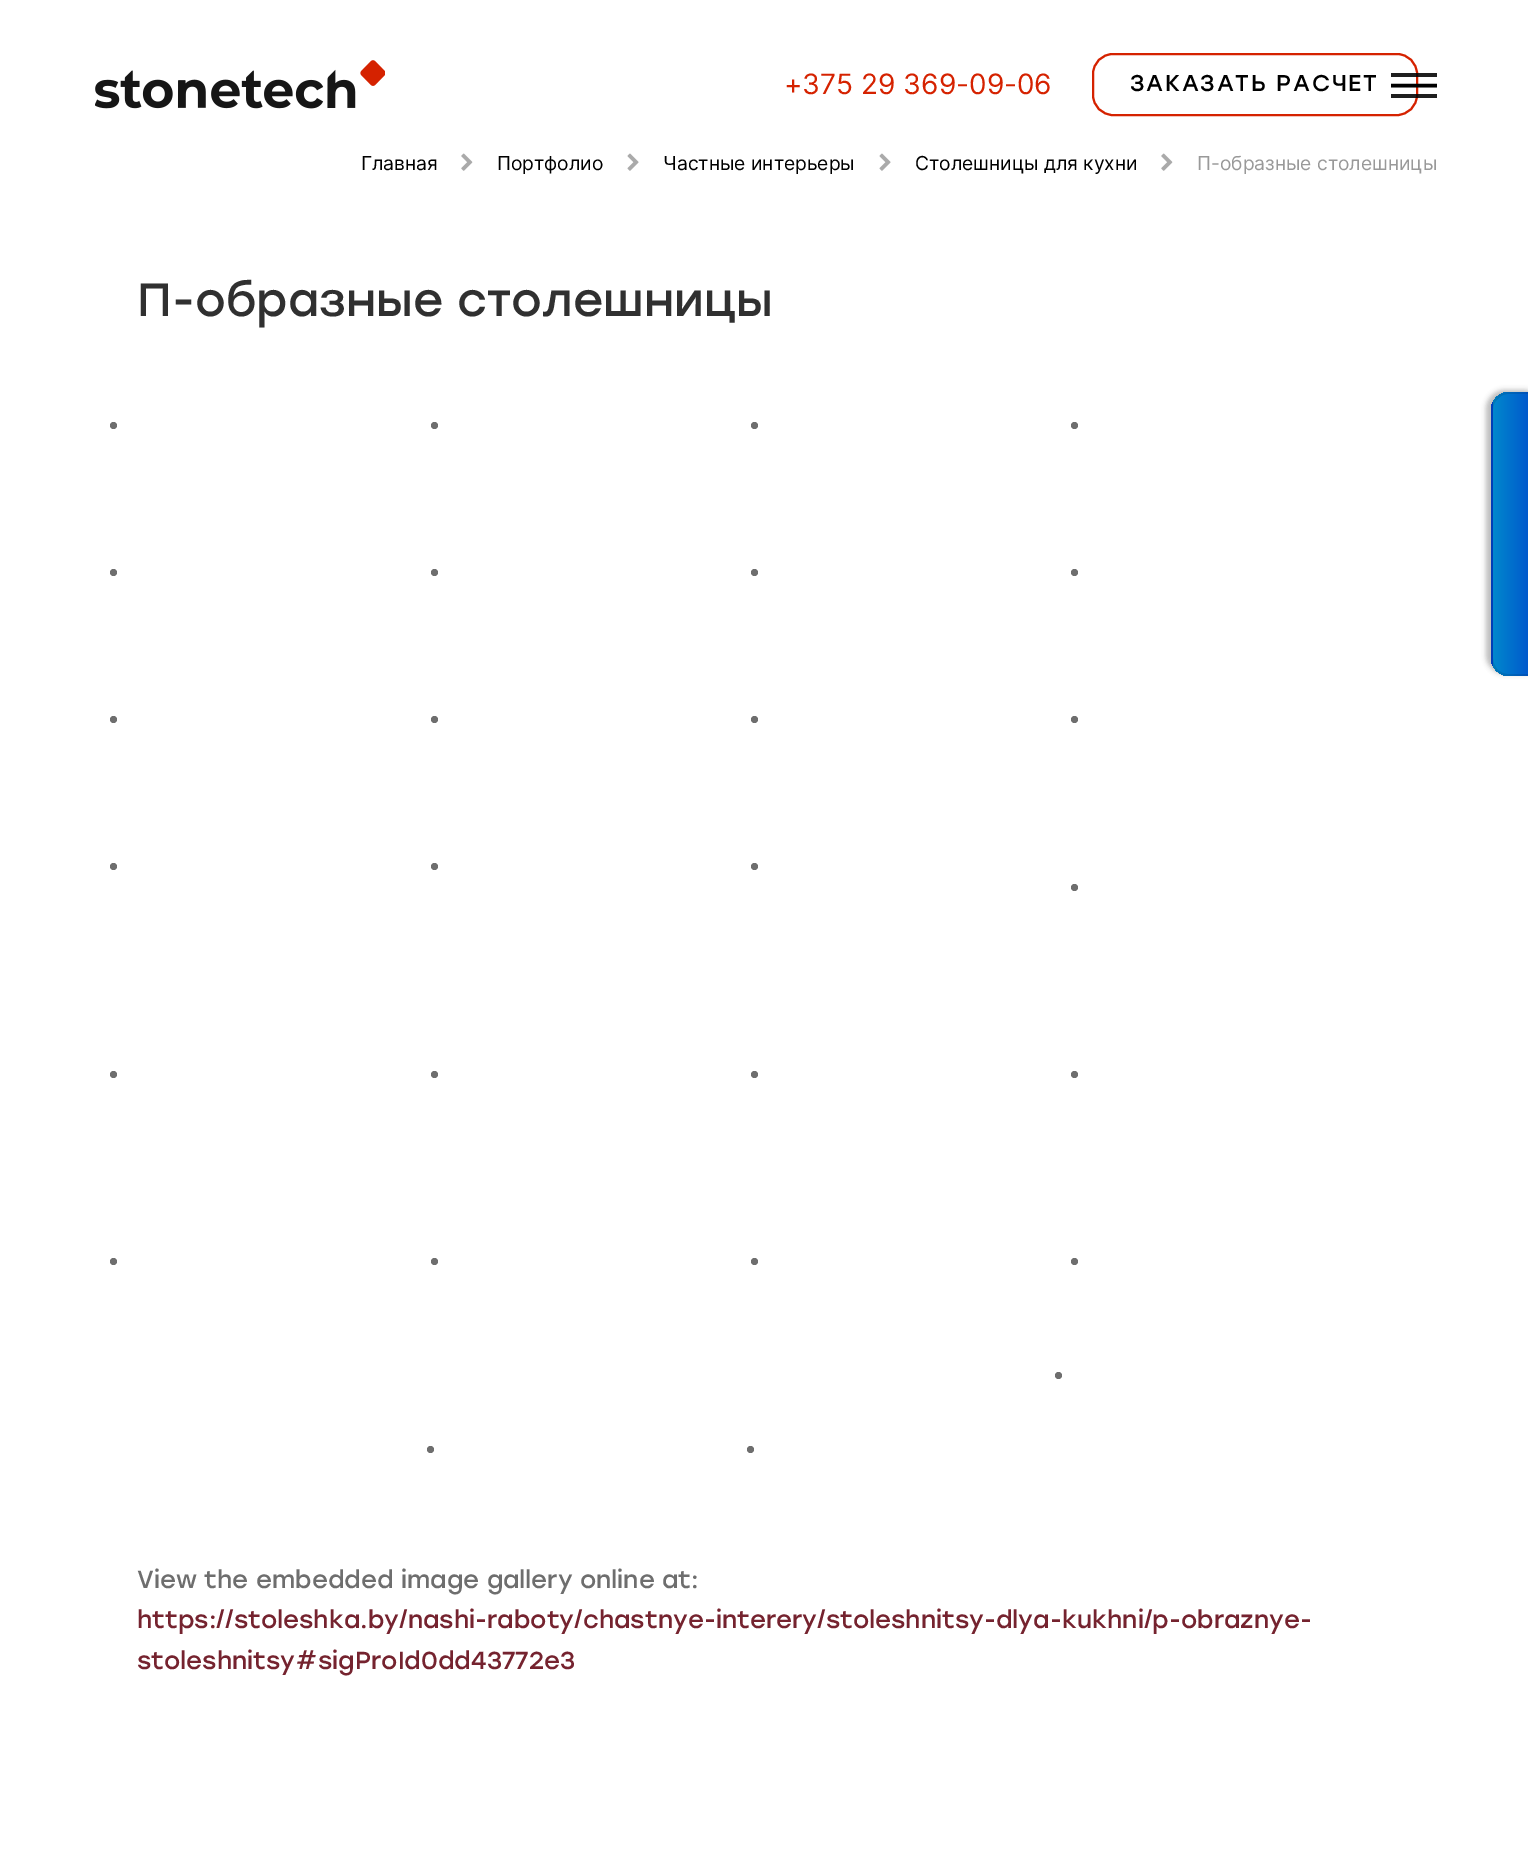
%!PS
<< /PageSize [1528 1869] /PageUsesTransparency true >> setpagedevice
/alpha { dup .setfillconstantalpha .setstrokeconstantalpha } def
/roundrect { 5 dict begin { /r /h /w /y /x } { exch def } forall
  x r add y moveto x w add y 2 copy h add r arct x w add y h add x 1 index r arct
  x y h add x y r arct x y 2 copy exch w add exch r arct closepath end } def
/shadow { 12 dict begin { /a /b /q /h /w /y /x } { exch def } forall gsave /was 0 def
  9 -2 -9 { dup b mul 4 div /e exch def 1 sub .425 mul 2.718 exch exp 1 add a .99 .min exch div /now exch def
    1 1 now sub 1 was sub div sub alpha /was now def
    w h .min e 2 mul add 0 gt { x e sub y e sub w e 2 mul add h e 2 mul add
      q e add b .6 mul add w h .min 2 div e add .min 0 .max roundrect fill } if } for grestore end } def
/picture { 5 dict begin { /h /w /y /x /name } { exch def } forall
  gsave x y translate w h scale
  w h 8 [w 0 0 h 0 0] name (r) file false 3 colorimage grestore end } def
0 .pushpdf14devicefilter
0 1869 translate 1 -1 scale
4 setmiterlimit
1 setgray
0 0 1528 1869 rectfill
(img1.rgb) 95 60 290 49 picture
/Inter-Regular [28 0 0 -28 0 0] selectfont
0.835 0.133 0 setrgbcolor
784 94 moveto (+375 29 369-09-06) show
2 setlinewidth
1093 54 324 61 20 roundrect stroke
/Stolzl-Regular [22.75 0 0 -22.75 0 0] selectfont
0 setgray
1130 91 moveto 1.75 0 (ЗАКАЗАТЬ РАСЧЕТ) ashow
0.88 alpha
1391 73 46 4 rectfill
1 alpha
3.5 setlinewidth
newpath 1391 85.5 moveto 1437 85.5 lineto stroke
0.88 alpha
1391 94 46 4 rectfill
/Inter-Regular [19.25 0 0 -19.25 0 0] selectfont
1 alpha
361 170 moveto (Главная) show
(img2.rgb) 461 153 12 18 picture
497 170 moveto (Портфолио) show
(img3.rgb) 627 153 12 18 picture
663 170 moveto (Частные интерьеры) show
(img3.rgb) 879 153 12 18 picture
915 170 moveto (Столешницы для кухни) show
(img2.rgb) 1161 153 12 18 picture
0.6 setgray
1197 170 moveto (П-образные столешницы) show
/Stolzl-Regular [46.5 0 0 -46.5 0 0] selectfont
0.188 setgray
137 316 moveto (П-образные столешницы) show
0.431 setgray
newpath 113.5 425.5 3.5 0 360 arc closepath fill
newpath 434.5 425.5 3.5 0 360 arc closepath fill
newpath 754.5 425.5 3.5 0 360 arc closepath fill
newpath 1074.5 425.5 3.5 0 360 arc closepath fill
newpath 113.5 572.5 3.5 0 360 arc closepath fill
newpath 434.5 572.5 3.5 0 360 arc closepath fill
newpath 754.5 572.5 3.5 0 360 arc closepath fill
newpath 1074.5 572.5 3.5 0 360 arc closepath fill
newpath 113.5 719.5 3.5 0 360 arc closepath fill
newpath 434.5 719.5 3.5 0 360 arc closepath fill
newpath 754.5 719.5 3.5 0 360 arc closepath fill
newpath 1074.5 719.5 3.5 0 360 arc closepath fill
newpath 113.5 866.5 3.5 0 360 arc closepath fill
newpath 434.5 866.5 3.5 0 360 arc closepath fill
newpath 754.5 866.5 3.5 0 360 arc closepath fill
newpath 1074.5 887.5 3.5 0 360 arc closepath fill
newpath 113.5 1074.5 3.5 0 360 arc closepath fill
newpath 434.5 1074.5 3.5 0 360 arc closepath fill
newpath 754.5 1074.5 3.5 0 360 arc closepath fill
newpath 1074.5 1074.5 3.5 0 360 arc closepath fill
newpath 113.5 1261.5 3.5 0 360 arc closepath fill
newpath 434.5 1261.5 3.5 0 360 arc closepath fill
newpath 754.5 1261.5 3.5 0 360 arc closepath fill
newpath 1074.5 1261.5 3.5 0 360 arc closepath fill
newpath 1058.5 1375.5 3.5 0 360 arc closepath fill
newpath 430.5 1449.5 3.5 0 360 arc closepath fill
newpath 750.5 1449.5 3.5 0 360 arc closepath fill
/Stolzl-Regular [24.5 0 0 -24.5 0 0] selectfont
137 1588 moveto (View the embedded image gallery online at:) show
0.459 0.137 0.184 setrgbcolor
137 1628 moveto (https://stoleshka.by/nashi-raboty/chastnye-interery/stoleshnitsy-dlya-kukhni/p-obraznye-) show
137 1669 moveto (stoleshnitsy#sigProId0dd43772e3) show
0 setgray
1486 390 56 284 18 2.5 0.25 shadow
gsave
newpath 1509 392 moveto 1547 392 lineto 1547 676 lineto 1509 676 lineto 1499 676 1491 668 1491 658 curveto 1491 410 lineto 1491 400 1499 392 1509 392 curveto closepath clip newpath
gsave newpath 1491 402 moveto 1493 402 lineto 1493 666 lineto 1491 666 lineto closepath clip newpath
<< /ShadingType 2 /ColorSpace /DeviceRGB /Coords [1440 534 1493 534] /Extend [true true] /Function << /FunctionType 2 /Domain [0 1] /C0 [0 0.533 0.8] /C1 [0 0.267 0.8] /N 1 >> >> shfill grestore
gsave newpath 1493 392 moveto 1528 392 lineto 1528 676 lineto 1493 676 lineto closepath clip newpath
<< /ShadingType 2 /ColorSpace /DeviceRGB /Coords [1493 534 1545 534] /Extend [true true] /Function << /FunctionType 2 /Domain [0 1] /C0 [0 0.533 0.8] /C1 [0 0.267 0.8] /N 1 >> >> shfill grestore
grestore
0.1 alpha
newpath 1508 392 moveto 1504 392 1499 394 1496 397 curveto 1498 399 lineto 1500 396 1504 394 1508 394 curveto 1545 394 lineto 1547 392 lineto closepath fill
newpath 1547 676 moveto 1504 676 lineto 1501 675 1498 673 1496 671 curveto 1497 669 lineto 1500 672 1504 674 1508 674 curveto 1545 674 lineto closepath fill
newpath 1491 410 moveto 1491 658 lineto 1491 663 1493 667 1496 671 curveto 1497 669 lineto 1495 666 1493 662 1493 658 curveto 1493 410 lineto 1493 405 1495 401 1498 399 curveto 1496 397 lineto 1493 400 1491 405 1491 410 curveto closepath fill
.poppdf14devicefilter showpage
